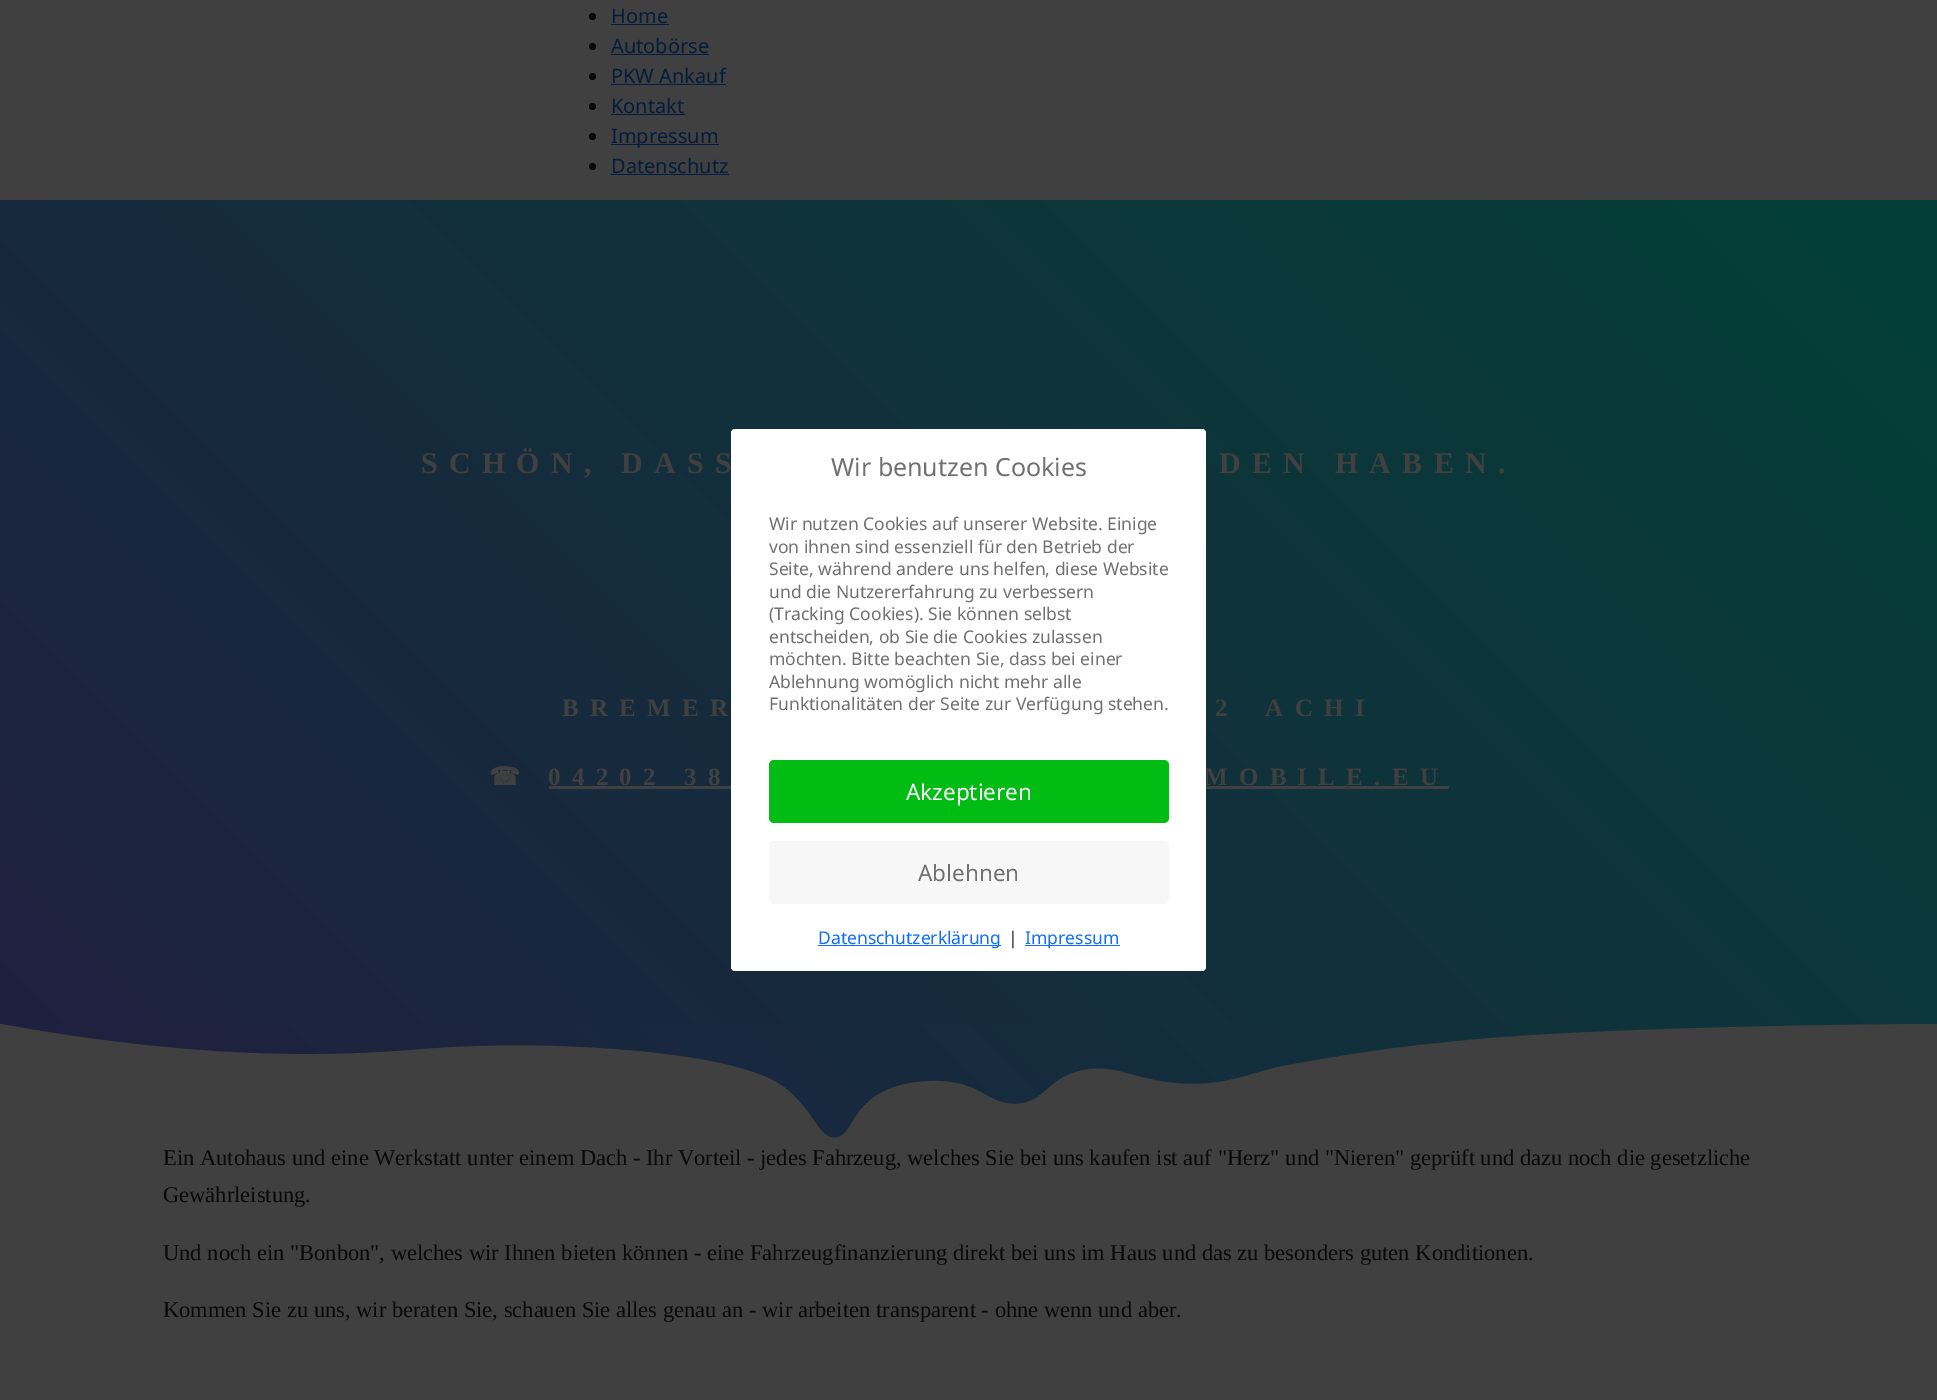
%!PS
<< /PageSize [1937 1400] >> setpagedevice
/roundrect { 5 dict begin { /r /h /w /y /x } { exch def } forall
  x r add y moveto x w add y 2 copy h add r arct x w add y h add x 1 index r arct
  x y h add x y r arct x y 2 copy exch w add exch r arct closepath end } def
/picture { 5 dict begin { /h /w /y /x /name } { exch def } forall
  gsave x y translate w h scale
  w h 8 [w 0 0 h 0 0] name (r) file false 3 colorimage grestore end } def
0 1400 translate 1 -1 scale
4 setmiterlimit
0.251 setgray
0 0 1937 1400 rectfill
0.031 0.035 0.039 setrgbcolor
newpath 592.5 16.5 3.5 0 360 arc closepath fill
/NotoSans-Regular [20 0 0 -20 0 0] selectfont
0.012 0.11 0.247 setrgbcolor
611 23 moveto (Home) show
611 24 58 1 rectfill
0.031 0.035 0.039 setrgbcolor
newpath 592.5 46.5 3.5 0 360 arc closepath fill
0.012 0.11 0.247 setrgbcolor
611 53 moveto (Autobörse) show
611 54 98 1 rectfill
0.031 0.035 0.039 setrgbcolor
newpath 592.5 76.5 3.5 0 360 arc closepath fill
0.012 0.11 0.247 setrgbcolor
611 83 moveto (PKW Ankauf) show
611 84 115 1 rectfill
0.031 0.035 0.039 setrgbcolor
newpath 592.5 106.5 3.5 0 360 arc closepath fill
0.012 0.11 0.247 setrgbcolor
611 113 moveto (Kontakt) show
611 114 74 1 rectfill
0.031 0.035 0.039 setrgbcolor
newpath 592.5 136.5 3.5 0 360 arc closepath fill
0.012 0.11 0.247 setrgbcolor
611 144 108 1 rectfill
611 143 moveto (Impressum) show
0.031 0.035 0.039 setrgbcolor
newpath 592.5 166.5 3.5 0 360 arc closepath fill
0.012 0.11 0.247 setrgbcolor
611 173 moveto (Datenschutz) show
611 174 118 1 rectfill
gsave newpath 0 200 moveto 1937 200 lineto 1937 1138 lineto 0 1138 lineto closepath clip newpath
<< /ShadingType 2 /ColorSpace /DeviceRGB /Coords [250 1388 1688 -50] /Extend [true true] /Function << /FunctionType 2 /Domain [0 1] /C0 [0.129 0.122 0.251] /C1 [0.012 0.251 0.22] /N 1 >> >> shfill grestore
/LiberationSerif-Bold [30 0 0 -30 0 0] selectfont
0.251 setgray
421 473 moveto 11.25 0 (SCHÖN, DASS) ashow
1219 473 moveto 11.25 0 (DEN HABEN.) ashow
/LiberationSerif-Bold [25 0 0 -25 0 0] selectfont
562 716 moveto 11.25 0 (BREMER) ashow
1215 716 moveto 9 0 32 11.25 0 (2 ACHI) awidthshow
/DejaVuSans-Bold [25 0 0 -25 0 0] selectfont
489 785 moveto 11.25 0 (☎) ashow
/LiberationSerif-Bold [25 0 0 -25 0 0] selectfont
548 785 moveto 11.25 0 (04202 38) ashow
549 786 182 3 rectfill
1204 785 moveto 11.25 0 (MOBILE.EU) ashow
1206 786 243 3 rectfill
(img1.rgb) 0 1024 1937 115 picture
/LiberationSerif-Regular [22.5 0 0 -22.5 0 0] selectfont
0.031 0.035 0.039 setrgbcolor
163 1165 moveto (Ein Autohaus und eine Werkstatt unter einem Dach - Ihr Vorteil - jedes Fahrzeug, welches Sie bei uns kaufen ist auf "Herz" und "Nieren" geprüft und dazu noch die gesetzliche) show
163 1202 moveto (Gewährleistung.) show
163 1260 moveto (Und noch ein "Bonbon", welches wir Ihnen bieten können - eine Fahrzeugfinanzierung direkt bei uns im Haus und das zu besonders guten Konditionen.) show
163 1317 moveto (Kommen Sie zu uns, wir beraten Sie, schauen Sie alles genau an - wir arbeiten transparent - ohne wenn und aber.) show
1 setgray
731 429 475 542 4 roundrect fill
/NotoSans-Regular [25 0 0 -25 0 0] selectfont
0.439 setgray
831 476 moveto (Wir benutzen Cookies) show
/NotoSans-Regular [17.5 0 0 -17.5 0 0] selectfont
769 530 moveto (Wir nutzen Cookies auf unserer Website. Einige) show
769 553 moveto (von ihnen sind essenziell für den Betrieb der) show
769 575 moveto (Seite, während andere uns helfen, diese Website) show
769 598 moveto (und die Nutzererfahrung zu verbessern) show
769 620 moveto (\(Tracking Cookies\). Sie können selbst) show
769 643 moveto (entscheiden, ob Sie die Cookies zulassen) show
769 665 moveto (möchten. Bitte beachten Sie, dass bei einer) show
769 688 moveto (Ablehnung womöglich nicht mehr alle) show
769 710 moveto (Funktionalitäten der Seite zur Verfügung stehen.) show
0 0.737 0.075 setrgbcolor
769 760 400 63 5 roundrect fill
/NotoSans-Regular [22.5 0 0 -22.5 0 0] selectfont
1 setgray
906 800 moveto (Akzeptieren) show
0.969 setgray
769 841 400 63 5 roundrect fill
0.439 setgray
918 881 moveto (Ablehnen) show
0.051 0.431 0.992 setrgbcolor
818 945 183 1 rectfill
/NotoSans-Regular [17.5 0 0 -17.5 0 0] selectfont
818 944 moveto (Datenschutzerklärung) show
0.129 0.145 0.161 setrgbcolor
1008 944 moveto (|) show
0.051 0.431 0.992 setrgbcolor
1025 945 95 1 rectfill
1025 944 moveto (Impressum) show
showpage
